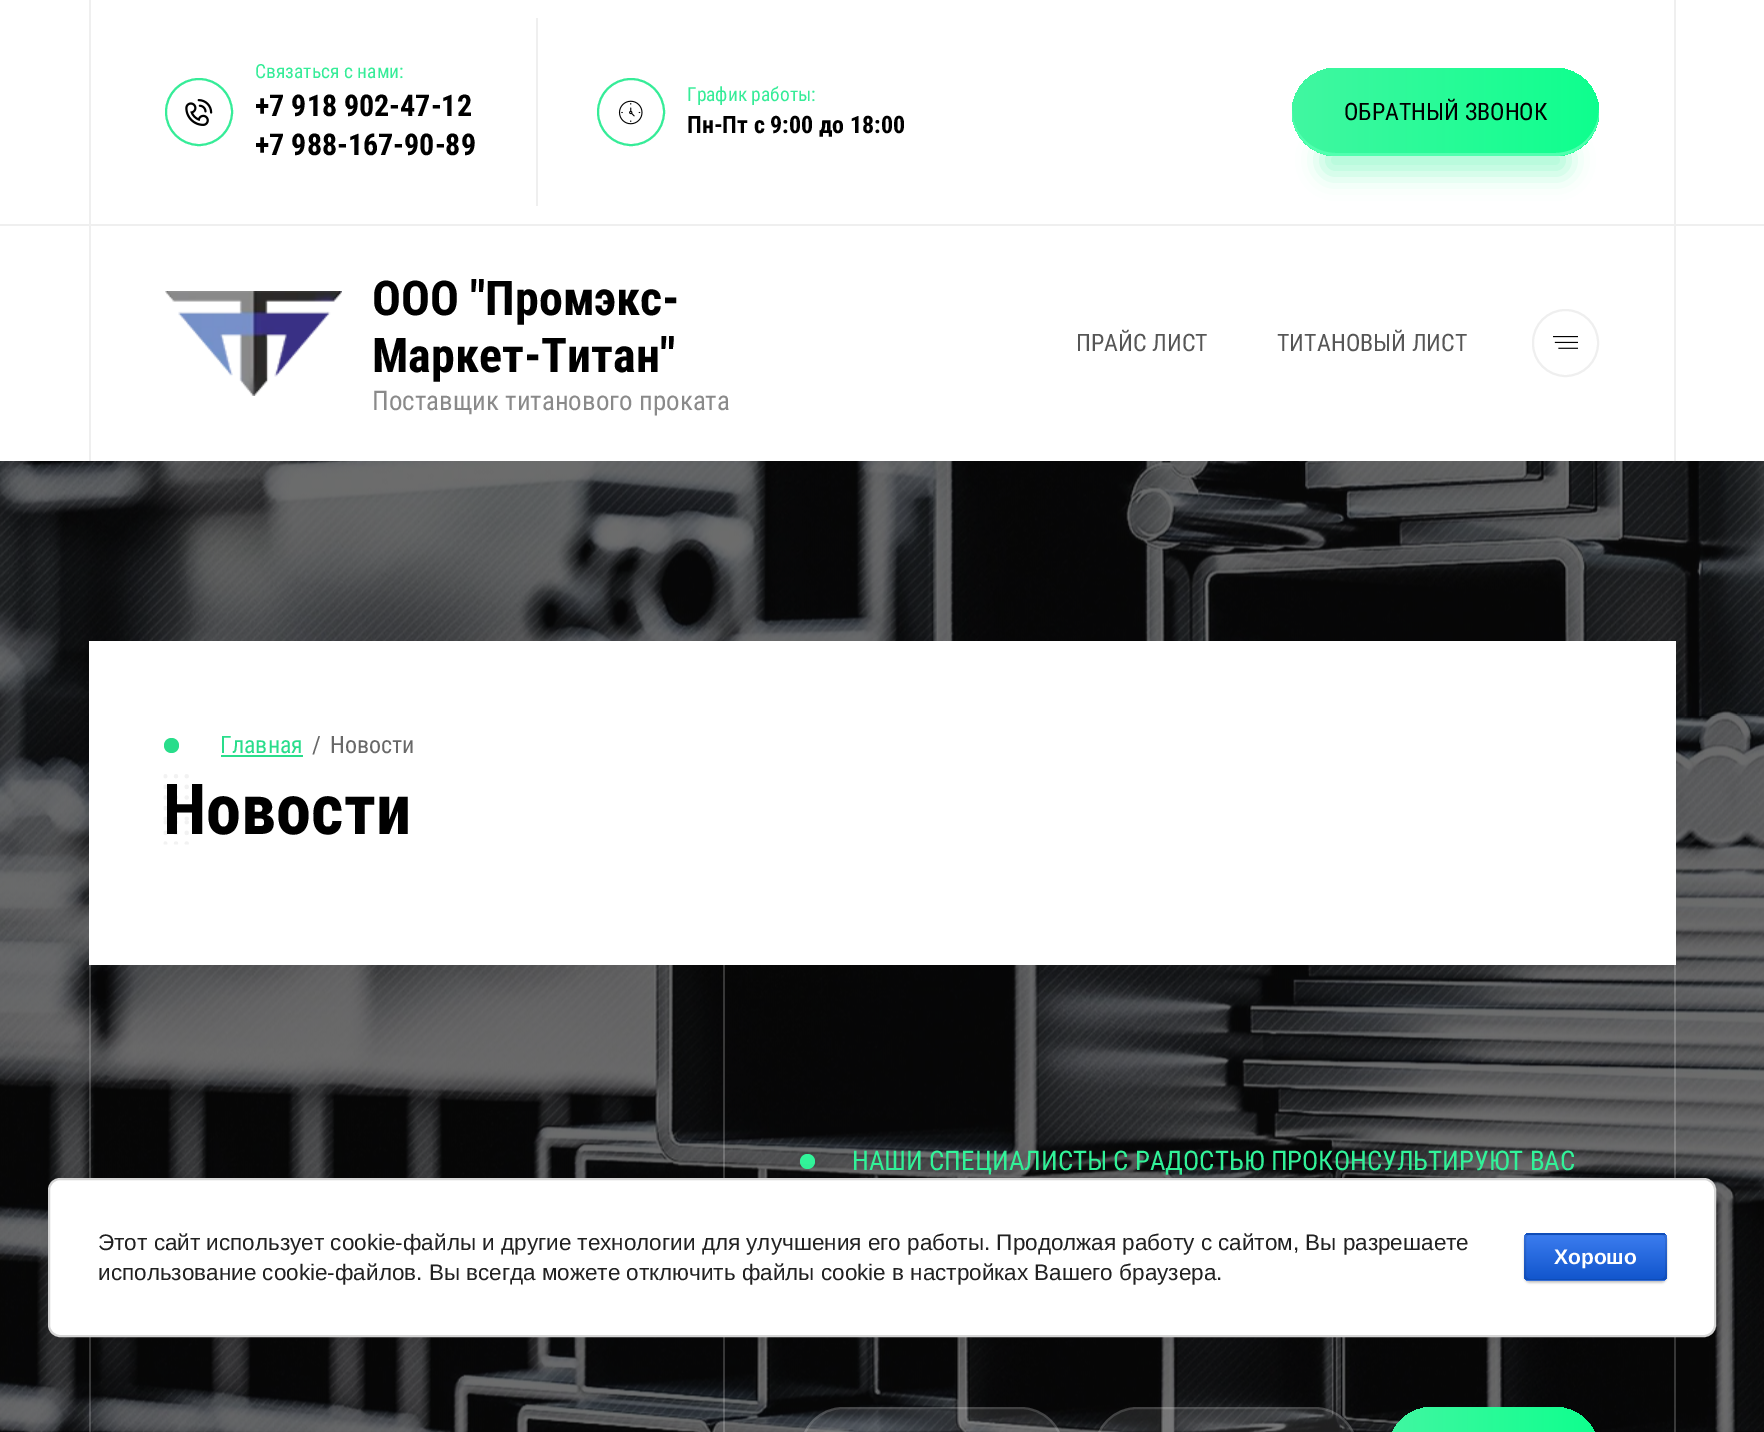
%!PS
<< /PageSize [1764 1432] /PageUsesTransparency true >> setpagedevice
/alpha { dup .setfillconstantalpha .setstrokeconstantalpha } def
/roundrect { 5 dict begin { /r /h /w /y /x } { exch def } forall
  x r add y moveto x w add y 2 copy h add r arct x w add y h add x 1 index r arct
  x y h add x y r arct x y 2 copy exch w add exch r arct closepath end } def
/shadow { 12 dict begin { /a /b /q /h /w /y /x } { exch def } forall gsave /was 0 def
  9 -2 -9 { dup b mul 4 div /e exch def 1 sub .425 mul 2.718 exch exp 1 add a .99 .min exch div /now exch def
    1 1 now sub 1 was sub div sub alpha /was now def
    w h .min e 2 mul add 0 gt { x e sub y e sub w e 2 mul add h e 2 mul add
      q e add b .6 mul add w h .min 2 div e add .min 0 .max roundrect fill } if } for grestore end } def
/picture { 5 dict begin { /h /w /y /x /name } { exch def } forall
  gsave x y translate w h scale
  w h 8 [w 0 0 h 0 0] name (r) file false 3 colorimage grestore end } def
0 .pushpdf14devicefilter
0 1432 translate 1 -1 scale
4 setmiterlimit
1 setgray
0 0 1764 1432 rectfill
0.937 setgray
1674 0 2 224 rectfill
89 0 2 224 rectfill
0.212 0.925 0.596 setrgbcolor
2 setlinewidth
newpath 199 112 33 0 360 arc closepath stroke
(img1.rgb) 185 99 28 27 picture
/RobotoCondensed-Regular [19.5 0 0 -19.5 0 0] selectfont
255 78 moveto (Связаться с нами:) show
/RobotoCondensed-Bold [30 0 0 -30 0 0] selectfont
0 setgray
255 116 moveto (+7 918 902-47-12) show
255 155 moveto (+7 988-167-90-89) show
0.937 setgray
536 18 2 188 rectfill
0.212 0.925 0.596 setrgbcolor
newpath 631 112 33 0 360 arc closepath stroke
(img2.rgb) 618 100 25 25 picture
/RobotoCondensed-Regular [19.5 0 0 -19.5 0 0] selectfont
687 101 moveto (График работы:) show
/RobotoCondensed-Bold [24 0 0 -24 0 0] selectfont
0 setgray
687 133 moveto (Пн-Пт с 9:00 до 18:00) show
0.196 0.961 0.608 setrgbcolor
1322 146 247 28 14 12 0.4 shadow
gsave 1292 68 307 88 44 roundrect clip newpath
<< /ShadingType 2 /ColorSpace /DeviceRGB /Coords [1599 112 1292 112] /Extend [true true] /Function << /FunctionType 2 /Domain [0 1] /C0 [0.055 1 0.557] /C1 [0.255 0.969 0.631] /N 1 >> >> shfill grestore
0.322 1 0.686 setrgbcolor
newpath 1292 111 moveto 1292 112 lineto 1292 136 1312 156 1336 156 curveto 1555 156 lineto 1579 156 1599 136 1599 112 curveto 1599 110 lineto 1598 134 1579 153 1555 153 curveto 1336 153 lineto 1312 153 1293 134 1292 111 curveto closepath fill
/RobotoCondensed-Regular [24 0 0 -24 0 0] selectfont
0 setgray
1344 120 moveto (ОБРАТНЫЙ ЗВОНОК) show
0.937 setgray
0 224 1764 2 rectfill
1674 225 2 236 rectfill
89 225 2 236 rectfill
(img3.rgb) 165 291 177 105 picture
/RobotoCondensed-Bold [48 0 0 -48 0 0] selectfont
0 setgray
372 315 moveto (ООО "Промэкс-) show
372 372 moveto (Маркет-Титан") show
/RobotoCondensed-Regular [27 0 0 -27 0 0] selectfont
0.541 setgray
372 410 moveto (Поставщик титанового проката) show
/RobotoCondensed-Regular [24 0 0 -24 0 0] selectfont
0.337 setgray
1076 351 moveto (ПРАЙС ЛИСТ) show
1277 351 moveto (ТИТАНОВЫЙ ЛИСТ) show
(img4.rgb) 1553 336 25 13 picture
0.937 setgray
1533 310 65 66 32.5 roundrect stroke
(img5.rgb) 0 461 1764 971 picture
1 setgray
89 641 1587 324 rectfill
0.161 0.867 0.545 setrgbcolor
newpath 171.5 745.5 7.5 0 360 arc closepath fill
220 753 moveto (Главная) show
221 755 82 2 rectfill
0.408 setgray
312 753 moveto (/) show
330 753 moveto (Новости) show
(img6.rgb) 163 774 26 71 picture
/RobotoCondensed-Bold [70.5 0 0 -70.5 0 0] selectfont
0 setgray
163 834 moveto (Новости) show
0.2 alpha
1 setgray
89 965 2 467 rectfill
1674 965 2 467 rectfill
723 965 2 467 rectfill
1 alpha
0.196 0.961 0.608 setrgbcolor
newpath 807.5 1161.5 7.5 0 360 arc closepath fill
/RobotoCondensed-Regular [27 0 0 -27 0 0] selectfont
852 1170 moveto (НАШИ СПЕЦИАЛИСТЫ С РАДОСТЬЮ ПРОКОНСУЛЬТИРУЮТ ВАС) show
0.1 alpha
1 setgray
800 1407 264 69 43.5 roundrect fill
0.15 alpha
801 1408 262 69 42.5 roundrect stroke
0.1 alpha
1094 1407 264 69 43.5 roundrect fill
0.15 alpha
1095 1408 262 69 42.5 roundrect stroke
1 alpha
gsave 1388 1407 211 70 44.5 roundrect clip newpath
<< /ShadingType 2 /ColorSpace /DeviceRGB /Coords [1599 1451 1388 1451] /Extend [true true] /Function << /FunctionType 2 /Domain [0 1] /C0 [0.055 1 0.557] /C1 [0.255 0.969 0.631] /N 1 >> >> shfill grestore
0 setgray
51 1181 1668 159 12 13.5 0.14 shadow
1 setgray
49 1179 1666 157 11 roundrect gsave fill grestore
0.839 setgray
stroke
/LiberationSans-Regular [22.5 0 0 -22.5 0 0] selectfont
0.129 setgray
98 1250 moveto (Этот сайт использует cookie-файлы и другие технологии для улучшения его работы. Продолжая работу с сайтом, Вы разрешаете) show
98 1280 moveto (использование cookie-файлов. Вы всегда можете отключить файлы cookie в настройках Вашего браузера.) show
0 setgray
1524 1235 143 48 6 1 0.2 shadow
gsave
1524 1233 143 48 6 roundrect clip newpath
gsave newpath 1524 1233 moveto 1667 1233 lineto 1667 1235 lineto 1524 1235 lineto closepath clip newpath
<< /ShadingType 2 /ColorSpace /DeviceRGB /Coords [1595 1190 1595 1235] /Extend [true true] /Function << /FunctionType 2 /Domain [0 1] /C0 [0.231 0.486 0.937] /C1 [0.067 0.333 0.8] /N 1 >> >> shfill grestore
gsave newpath 1524 1235 moveto 1667 1235 lineto 1667 1280 lineto 1524 1280 lineto closepath clip newpath
<< /ShadingType 2 /ColorSpace /DeviceRGB /Coords [1595 1235 1595 1280] /Extend [true true] /Function << /FunctionType 2 /Domain [0 1] /C0 [0.231 0.486 0.937] /C1 [0.067 0.333 0.8] /N 1 >> >> shfill grestore
gsave newpath 1524 1280 moveto 1667 1280 lineto 1667 1281 lineto 1524 1281 lineto closepath clip newpath
<< /ShadingType 2 /ColorSpace /DeviceRGB /Coords [1595 1280 1595 1325] /Extend [true true] /Function << /FunctionType 2 /Domain [0 1] /C0 [0.231 0.486 0.937] /C1 [0.067 0.333 0.8] /N 1 >> >> shfill grestore
grestore
0.1 alpha
1525 1234 141 46 5 roundrect stroke
/LiberationSans-Bold [21 0 0 -21 0 0] selectfont
1 alpha
1 setgray
1554 1264 moveto (Хорошо) show
.poppdf14devicefilter showpage
